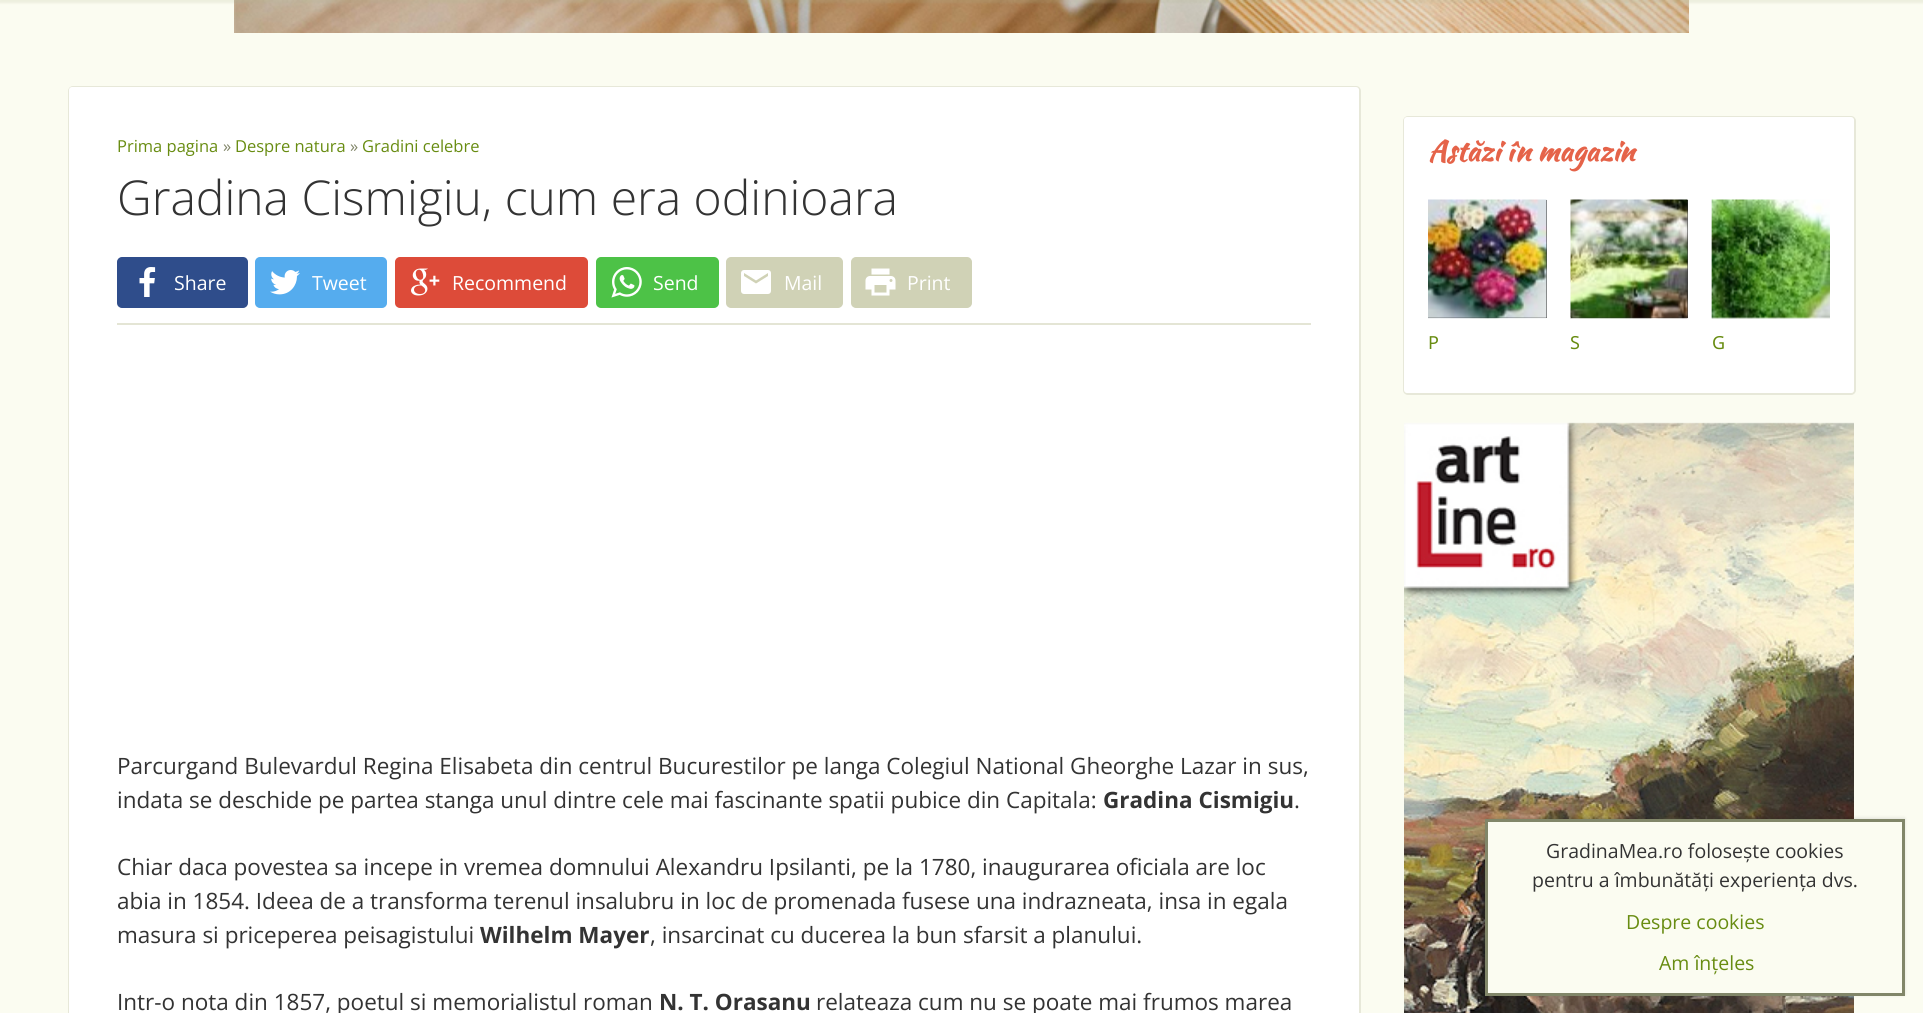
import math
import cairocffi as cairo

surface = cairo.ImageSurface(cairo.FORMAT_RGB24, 1923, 1013)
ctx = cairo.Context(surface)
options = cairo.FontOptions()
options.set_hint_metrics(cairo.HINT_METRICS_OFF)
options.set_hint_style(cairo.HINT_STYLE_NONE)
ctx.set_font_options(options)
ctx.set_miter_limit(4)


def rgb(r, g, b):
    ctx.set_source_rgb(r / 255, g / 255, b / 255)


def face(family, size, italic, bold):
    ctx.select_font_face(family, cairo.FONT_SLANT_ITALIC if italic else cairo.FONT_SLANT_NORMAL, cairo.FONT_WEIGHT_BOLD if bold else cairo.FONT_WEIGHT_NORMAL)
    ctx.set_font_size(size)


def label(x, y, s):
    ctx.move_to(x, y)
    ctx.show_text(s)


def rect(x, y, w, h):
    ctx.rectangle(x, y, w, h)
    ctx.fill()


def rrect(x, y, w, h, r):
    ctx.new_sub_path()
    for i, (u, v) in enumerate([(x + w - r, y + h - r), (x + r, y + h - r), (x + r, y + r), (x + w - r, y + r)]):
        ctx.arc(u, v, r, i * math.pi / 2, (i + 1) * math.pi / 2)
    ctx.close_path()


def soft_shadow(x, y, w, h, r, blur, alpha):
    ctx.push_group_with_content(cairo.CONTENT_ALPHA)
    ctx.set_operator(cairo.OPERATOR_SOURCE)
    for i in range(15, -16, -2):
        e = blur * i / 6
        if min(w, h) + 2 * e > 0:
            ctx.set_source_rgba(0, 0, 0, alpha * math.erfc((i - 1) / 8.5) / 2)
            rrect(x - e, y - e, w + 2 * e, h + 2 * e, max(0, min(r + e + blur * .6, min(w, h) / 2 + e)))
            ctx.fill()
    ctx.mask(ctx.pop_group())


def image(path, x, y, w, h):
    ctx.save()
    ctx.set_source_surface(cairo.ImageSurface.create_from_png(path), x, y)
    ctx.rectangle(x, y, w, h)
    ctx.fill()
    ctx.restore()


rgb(251, 252, 241)
ctx.paint()
image('image0.png', 234, 0, 1455, 33)
rgb(178, 184, 146)
soft_shadow(-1, -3, 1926, 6, 0, 1, 0.2)
rrect(69, 87, 1291, 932, 4)
rgb(231, 232, 217)
ctx.stroke()
rgb(255, 255, 255)
rrect(69, 87, 1290, 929, 3)
ctx.fill()
face('Open Sans', 16.5, 0, 0)
rgb(104, 140, 17)
label(117, 152, 'Prima pagina')
rgb(129, 134, 105)
label(223, 152, '»')
rgb(104, 140, 17)
label(235, 152, 'Despre natura')
rgb(129, 134, 105)
label(350, 152, '»')
rgb(104, 140, 17)
label(362, 152, 'Gradini celebre')
face('Open Sans Light', 48, 0, 0)
rgb(51, 51, 51)
label(117, 215, 'Gradina Cismigiu, cum era odinioara')
rgb(228, 229, 213)
rect(117, 323, 1194, 2)
rgb(47, 77, 139)
rrect(118, 258, 129, 49, 4)
ctx.fill_preserve()
ctx.stroke()
image('image1.png', 139, 267, 17, 30)
face('Open Sans', 19.5, 0, 0)
rgb(255, 255, 255)
label(174, 290, 'Share')
rgb(85, 172, 238)
rrect(256, 258, 130, 49, 4)
ctx.fill_preserve()
ctx.stroke()
image('image2.png', 270, 270, 30, 25)
rgb(255, 255, 255)
label(312, 290, 'Tweet')
rgb(221, 75, 57)
rrect(396, 258, 191, 49, 4)
ctx.fill_preserve()
ctx.stroke()
image('image3.png', 411, 268, 29, 28)
rgb(255, 255, 255)
label(452, 290, 'Recommend')
rgb(77, 194, 71)
rrect(597, 258, 121, 49, 4)
ctx.fill_preserve()
ctx.stroke()
image('image4.png', 611, 267, 31, 31)
rgb(255, 255, 255)
label(653, 290, 'Send')
rgb(208, 210, 182)
rrect(727, 258, 115, 49, 4)
ctx.fill_preserve()
ctx.stroke()
image('image5.png', 741, 270, 30, 24)
rgb(255, 255, 255)
label(784, 290, 'Mail')
rgb(208, 210, 182)
rrect(852, 258, 119, 49, 4)
ctx.fill_preserve()
ctx.stroke()
image('image6.png', 865, 268, 31, 28)
rgb(255, 255, 255)
label(907, 290, 'Print')
face('Open Sans', 22.5, 0, 0)
rgb(51, 51, 51)
label(117, 774, 'Parcurgand Bulevardul Regina Elisabeta din centrul Bucurestilor pe langa Colegiul National Gheorghe Lazar in sus,')
label(117, 808, 'indata se deschide pe partea stanga unul dintre cele mai fascinante spatii pubice din Capitala:')
face('Open Sans', 22.5, 0, 1)
label(1103, 808, 'Gradina Cismigiu')
face('Open Sans', 22.5, 0, 0)
label(1294, 808, '.')
label(117, 875, 'Chiar daca povestea sa incepe in vremea domnului Alexandru Ipsilanti, pe la 1780, inaugurarea oficiala are loc')
label(117, 909, 'abia in 1854. Ideea de a transforma terenul insalubru in loc de promenada fusese una indrazneata, insa in egala')
label(117, 943, 'masura si priceperea peisagistului')
face('Open Sans', 22.5, 0, 1)
label(480, 943, 'Wilhelm Mayer')
face('Open Sans', 22.5, 0, 0)
label(650, 943, ', insarcinat cu ducerea la bun sfarsit a planului.')
label(117, 1010, 'Intr-o nota din 1857, poetul si memorialistul roman')
face('Open Sans', 22.5, 0, 1)
label(659, 1010, 'N. T. Orasanu')
face('Open Sans', 22.5, 0, 0)
label(816, 1010, 'relateaza cum nu se poate mai frumos marea')
rrect(1404, 117, 451, 277, 4)
rgb(231, 232, 217)
ctx.stroke()
rgb(255, 255, 255)
rrect(1404, 117, 450, 276, 3)
ctx.fill()
face('Kaushan Script', 28.5, 0, 1)
rgb(229, 99, 73)
label(1428, 161, 'Astăzi în magazin')
rgb(51, 51, 51)
rect(1428, 200, 119, 118)
image('image7.png', 1428, 199, 119, 120)
face('Noto Sans', 18, 0, 0)
rgb(104, 140, 17)
label(1428, 349, 'P')
rgb(51, 51, 51)
rect(1571, 200, 117, 118)
image('image8.png', 1570, 199, 118, 120)
rgb(104, 140, 17)
label(1570, 349, 'S')
image('image9.png', 1711, 199, 119, 120)
label(1712, 349, 'G')
image('image10.png', 1404, 422, 450, 591)
rgb(0, 0, 0)
soft_shadow(1485, 818, 420, 177, 0, 1.5, 0.1)
rgb(251, 252, 241)
ctx.rectangle(1486.5, 820.5, 417, 174)
ctx.fill_preserve()
rgb(129, 134, 105)
ctx.set_line_width(3)
ctx.stroke()
face('Open Sans', 19.5, 0, 0)
rgb(51, 51, 51)
label(1546, 858, 'GradinaMea.ro folosește cookies')
label(1532, 887, 'pentru a îmbunătăți experiența dvs.')
rgb(104, 140, 17)
label(1626, 929, 'Despre cookies')
label(1659, 970, 'Am înțeles')
surface.write_to_png('render.png')
